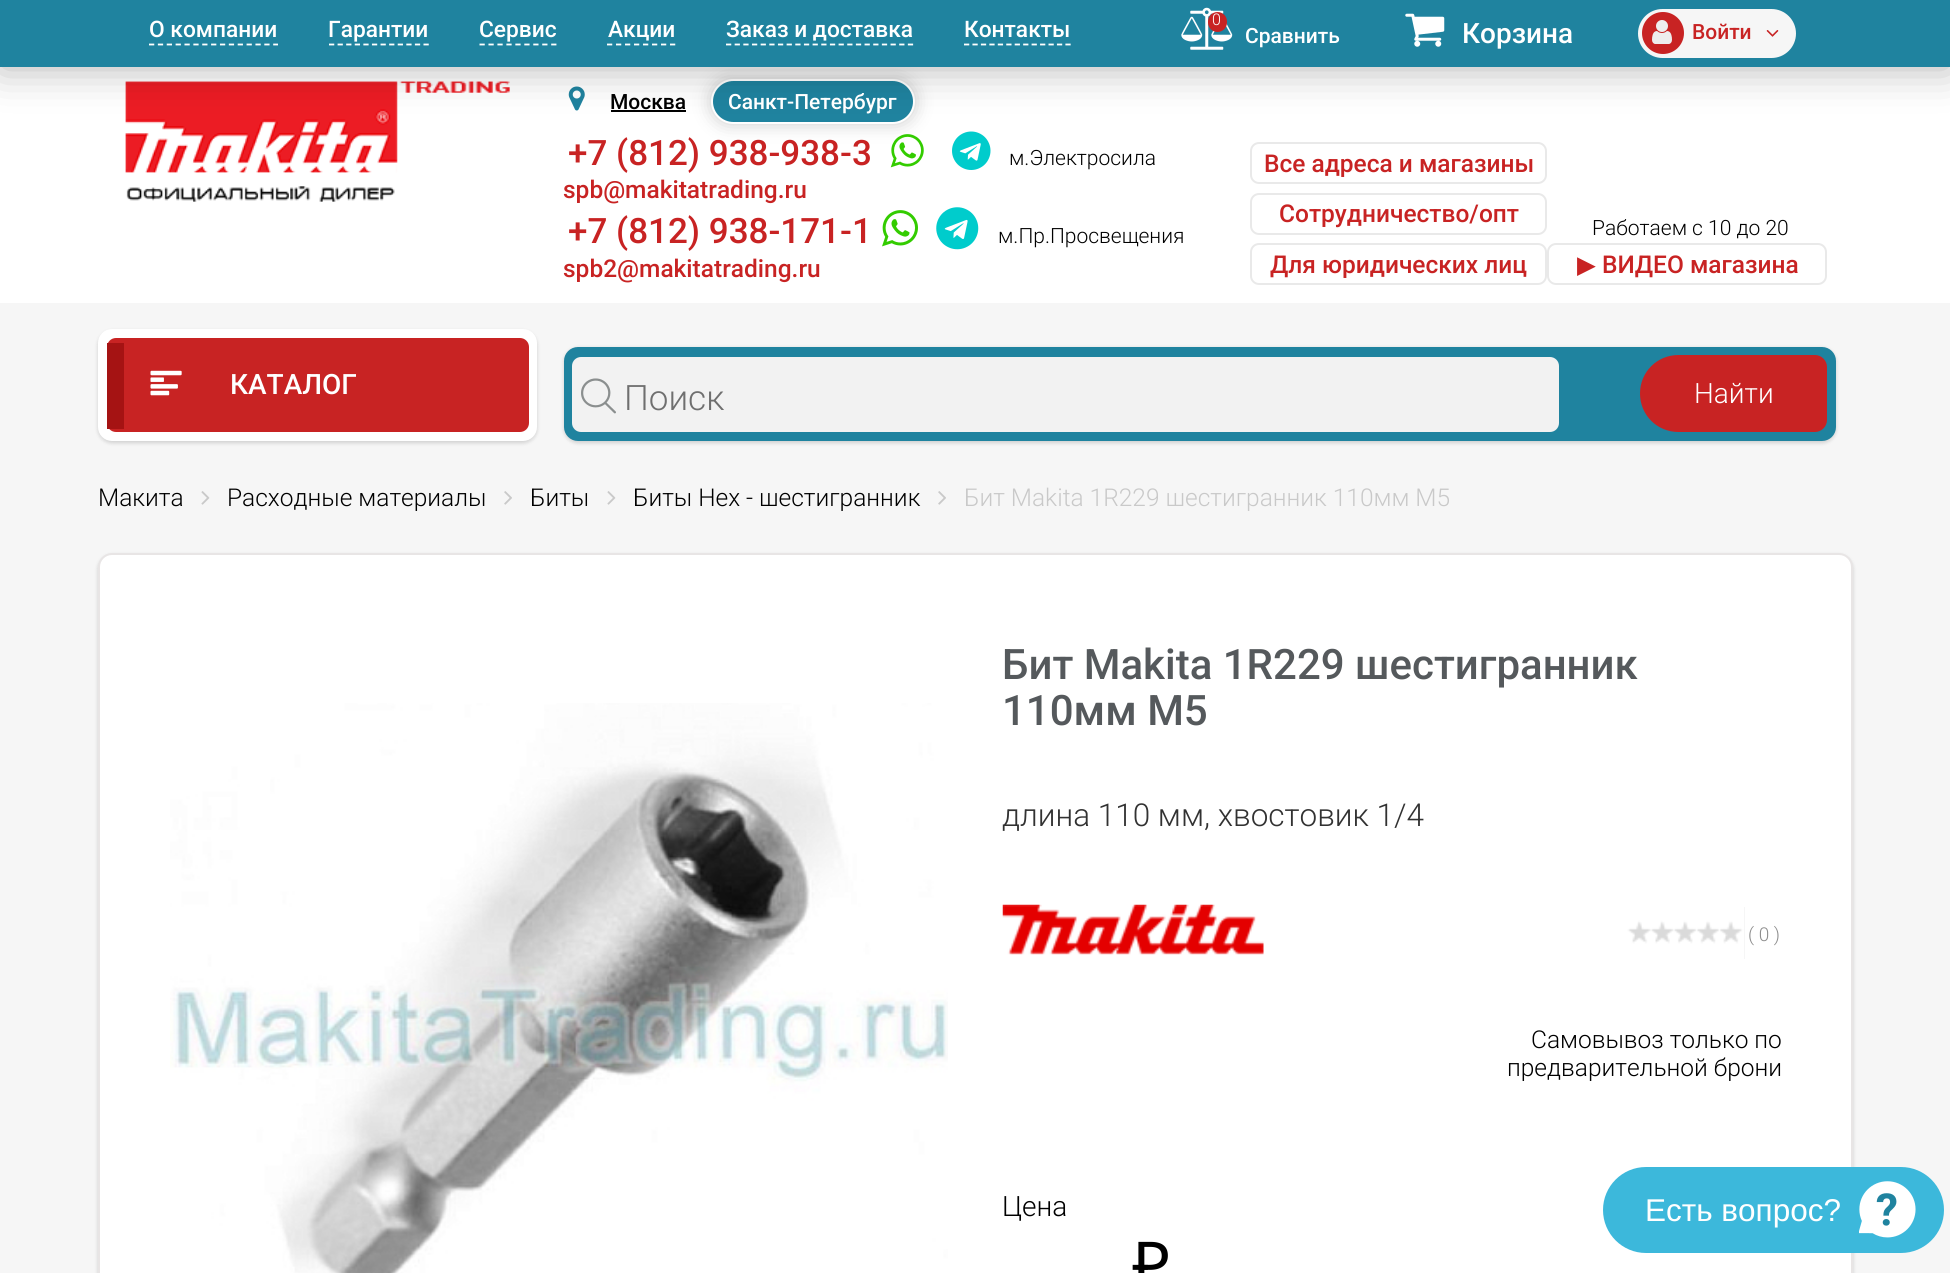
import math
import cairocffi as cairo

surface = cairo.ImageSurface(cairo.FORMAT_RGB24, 1950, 1273)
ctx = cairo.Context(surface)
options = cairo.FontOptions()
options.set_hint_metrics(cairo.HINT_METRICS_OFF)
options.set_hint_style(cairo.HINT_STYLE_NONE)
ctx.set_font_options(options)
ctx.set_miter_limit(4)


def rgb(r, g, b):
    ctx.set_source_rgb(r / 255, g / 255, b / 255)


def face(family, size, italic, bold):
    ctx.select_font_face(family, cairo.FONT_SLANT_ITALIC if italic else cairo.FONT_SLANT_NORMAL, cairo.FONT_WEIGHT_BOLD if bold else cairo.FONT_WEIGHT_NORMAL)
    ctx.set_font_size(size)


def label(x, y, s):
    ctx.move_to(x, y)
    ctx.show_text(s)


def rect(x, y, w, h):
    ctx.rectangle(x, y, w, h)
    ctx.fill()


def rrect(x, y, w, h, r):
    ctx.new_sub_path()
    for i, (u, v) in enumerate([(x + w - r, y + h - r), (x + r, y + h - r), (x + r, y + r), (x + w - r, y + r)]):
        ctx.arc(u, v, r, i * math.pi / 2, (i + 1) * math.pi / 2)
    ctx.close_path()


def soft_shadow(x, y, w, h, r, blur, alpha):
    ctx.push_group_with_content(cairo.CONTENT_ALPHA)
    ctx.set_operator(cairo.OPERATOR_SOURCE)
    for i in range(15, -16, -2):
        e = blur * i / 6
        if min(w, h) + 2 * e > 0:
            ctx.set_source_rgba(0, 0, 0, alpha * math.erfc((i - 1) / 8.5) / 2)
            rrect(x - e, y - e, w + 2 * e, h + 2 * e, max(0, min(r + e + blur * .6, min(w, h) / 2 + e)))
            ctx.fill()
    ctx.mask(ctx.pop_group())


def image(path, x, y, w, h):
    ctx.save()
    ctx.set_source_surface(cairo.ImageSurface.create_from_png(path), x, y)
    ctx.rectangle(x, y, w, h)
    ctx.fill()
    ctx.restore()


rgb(246, 246, 246)
ctx.paint()
rgb(255, 255, 255)
rect(0, 67, 1950, 236)
image('image4.png', 125, 81, 385, 121)
image('image5.png', 568, 86, 17, 25)
rgb(0, 0, 0)
rect(611, 110, 75, 2)
rgb(0, 0, 0)
soft_shadow(711, 79, 204, 45, 22.5, 9, 0.2)
rgb(31, 131, 159)
rrect(712, 80, 202, 43, 21.5)
ctx.fill_preserve()
rgb(255, 255, 255)
ctx.stroke()
image('image7.png', 952, 131, 39, 39)
rgb(0, 0, 0)
soft_shadow(0, 2, 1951, 66, 0, 21, 0.3)
rgb(31, 131, 159)
rect(0, 0, 1950, 67)
ctx.new_path()
ctx.move_to(149, 44.5)
ctx.line_to(278, 44.5)
rgb(255, 255, 255)
ctx.set_line_width(1.8)
ctx.set_dash([5.25, 3.62])
ctx.stroke()
face('Roboto Medium', 22.75, 0, 0)
label(149, 37, 'О компании')
ctx.new_path()
ctx.move_to(329, 44.5)
ctx.line_to(429, 44.5)
ctx.set_dash([5.25, 3.34])
ctx.stroke()
label(328, 37, 'Гарантии')
ctx.new_path()
ctx.move_to(479.5, 44.5)
ctx.line_to(556.5, 44.5)
ctx.set_dash([5.25, 3.71])
ctx.stroke()
label(479, 37, 'Сервис')
ctx.new_path()
ctx.move_to(607, 44.5)
ctx.line_to(675.5, 44.5)
ctx.set_dash([5.25, 3.75])
ctx.stroke()
label(608, 37, 'Акции')
ctx.new_path()
ctx.move_to(726, 44.5)
ctx.line_to(913.5, 44.5)
ctx.set_dash([5.25, 3.41])
ctx.stroke()
label(726, 37, 'Заказ и доставка')
ctx.new_path()
ctx.move_to(964, 44.5)
ctx.line_to(1071, 44.5)
ctx.set_dash([5.25, 3.2])
ctx.stroke()
label(964, 37, 'Контакты')
image('image0.png', 1181, 7, 52, 43)
rgb(200, 35, 35)
rrect(1208, 12, 19, 20, 9.5)
ctx.fill()
face('Roboto Light', 16, 0, 0)
rgb(255, 255, 255)
label(1212, 25, '0')
face('Roboto Medium', 21, 0, 0)
label(1245, 43, 'Сравнить')
image('image1.png', 1405, 13, 40, 34)
face('Roboto Medium', 28, 0, 0)
label(1462, 43, 'Корзина')
rgb(246, 246, 246)
rrect(1640, 11, 154, 45, 22.5)
ctx.fill_preserve()
ctx.set_line_width(4)
ctx.set_dash([])
ctx.stroke()
rgb(200, 35, 35)
ctx.arc(1663, 33, 21, 0, 2 * math.pi)
ctx.fill()
image('image2.png', 1652, 20, 20, 24)
face('Roboto Medium', 21, 0, 0)
label(1692, 39, 'Войти')
image('image3.png', 1766, 30, 13, 7)
rgb(0, 0, 0)
label(610, 109, 'Москва')
rgb(255, 255, 255)
label(728, 109, 'Санкт-Петербург')
face('Roboto Medium', 35, 0, 0)
rgb(200, 35, 35)
label(568, 165, '+7 (812) 938-938-3')
image('image6.png', 890, 134, 34, 34)
face('Roboto Light', 21, 0, 0)
rgb(0, 0, 0)
label(1009, 165, 'м.Электросила')
face('Roboto Medium', 24.5, 0, 0)
rgb(200, 35, 35)
label(563, 198, 'spb@makitatrading.ru')
face('Roboto Medium', 35, 0, 0)
label(568, 243, '+7 (812) 938-171-1')
image('image8.png', 882, 210, 36, 37)
image('image9.png', 936, 207, 43, 43)
face('Roboto Light', 21, 0, 0)
rgb(0, 0, 0)
label(998, 243, 'м.Пр.Просвещения')
face('Roboto Medium', 24.5, 0, 0)
rgb(200, 35, 35)
label(563, 277, 'spb2@makitatrading.ru')
rrect(1251, 143, 295, 40, 8)
rgb(233, 233, 233)
ctx.set_line_width(2)
ctx.stroke()
rgb(200, 35, 35)
label(1264, 172, 'Все адреса и магазины')
rrect(1251, 194, 295, 40, 8)
rgb(233, 233, 233)
ctx.stroke()
rgb(200, 35, 35)
label(1279, 222, 'Сотрудничество/опт')
rrect(1251, 244, 295, 40, 8)
rgb(233, 233, 233)
ctx.stroke()
rgb(200, 35, 35)
label(1270, 273, 'Для юридических лиц')
face('Roboto Light', 21, 0, 0)
rgb(0, 0, 0)
label(1592, 235, 'Работаем с 10 до 20')
rrect(1548, 244, 278, 40, 8)
rgb(233, 233, 233)
ctx.stroke()
face('DejaVu Sans', 24.5, 0, 0)
rgb(200, 35, 35)
label(1577, 273, '▶')
face('Roboto Medium', 24.5, 0, 0)
label(1602, 273, 'ВИДЕО магазина')
rgb(0, 0, 0)
soft_shadow(98, 331, 439, 112, 14, 2, 0.16)
rgb(255, 255, 255)
rrect(98, 329, 439, 112, 14)
ctx.fill()
rgb(200, 35, 35)
rrect(107, 338, 422, 94, 9)
ctx.fill()
rgb(165, 19, 19)
rect(107, 343, 17, 86)
image('image10.png', 150, 370, 32, 26)
face('Roboto Medium', 28, 0, 0)
rgb(255, 255, 255)
label(230, 394, 'КАТАЛОГ')
rgb(0, 0, 0)
soft_shadow(564, 348, 1272, 95, 14, 2, 0.16)
rgb(31, 131, 159)
rrect(564, 347, 1272, 94, 14)
ctx.fill()
rgb(242, 242, 242)
rrect(572, 357, 987, 75, 9)
ctx.fill()
image('image11.png', 581, 378, 35, 36)
face('Roboto Light', 35, 0, 0)
rgb(111, 111, 111)
label(624, 410, 'Поиск')
rgb(200, 35, 35)
ctx.new_path()
ctx.move_to(1678.5, 355)
ctx.line_to(1815, 355)
ctx.curve_to(1821.5, 355, 1827, 360.5, 1827, 367)
ctx.line_to(1827, 420)
ctx.curve_to(1827, 426.5, 1821.5, 432, 1815, 432)
ctx.line_to(1678.5, 432)
ctx.curve_to(1657, 432, 1640, 415, 1640, 393.5)
ctx.curve_to(1640, 372, 1657, 355, 1678.5, 355)
ctx.close_path()
ctx.fill()
face('Roboto Light', 28, 0, 0)
rgb(255, 255, 255)
label(1694, 403, 'Найти')
face('Roboto Light', 24.5, 0, 0)
rgb(0, 0, 0)
label(98, 506, 'Макита')
image('image12.png', 201, 491, 9, 14)
label(227, 506, 'Расходные материалы')
image('image13.png', 504, 491, 8, 14)
label(530, 506, 'Биты')
image('image12.png', 607, 491, 9, 14)
label(633, 506, 'Биты Hex - шестигранник')
image('image13.png', 938, 491, 8, 14)
rgb(201, 201, 201)
label(964, 506, 'Бит Makita 1R229 шестигранник 110мм M5')
rgb(0, 0, 0)
soft_shadow(98, 555, 1755, 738, 14, 2, 0.16)
rgb(255, 255, 255)
rrect(99, 554, 1753, 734, 13)
ctx.fill_preserve()
rgb(232, 229, 229)
ctx.stroke()
image('image14.png', 170, 703, 778, 570)
face('Roboto Medium', 42, 0, 0)
rgb(85, 89, 92)
label(1002, 679, 'Бит Makita 1R229 шестигранник')
label(1002, 725, '110мм M5')
face('Roboto Light', 31.5, 0, 0)
rgb(50, 50, 50)
label(1002, 826, 'длина 110 мм, хвостовик 1/4')
image('image15.png', 1002, 904, 262, 51)
rgb(218, 218, 218)
rect(1627, 907, 118, 52)
image('image16.png', 1626, 907, 119, 52)
face('Roboto Light', 19, 0, 0)
rgb(141, 141, 141)
label(1748, 941, '( 0 )')
face('Roboto Light', 24.5, 0, 0)
rgb(0, 0, 0)
label(1531, 1048, 'Самовывоз только по')
label(1507, 1076, 'предварительной брони')
face('Roboto Light', 28, 0, 0)
label(1002, 1216, 'Цена')
face('Noto Sans', 66, 0, 0)
label(1132, 1289, '₽')
rgb(60, 184, 219)
rrect(1603, 1167, 341, 86, 43)
ctx.fill()
face('Liberation Sans', 31.5, 0, 0)
rgb(255, 255, 255)
label(1645, 1221, 'Есть вопрос?')
image('image17.png', 1859, 1181, 57, 57)
surface.write_to_png('render.png')
